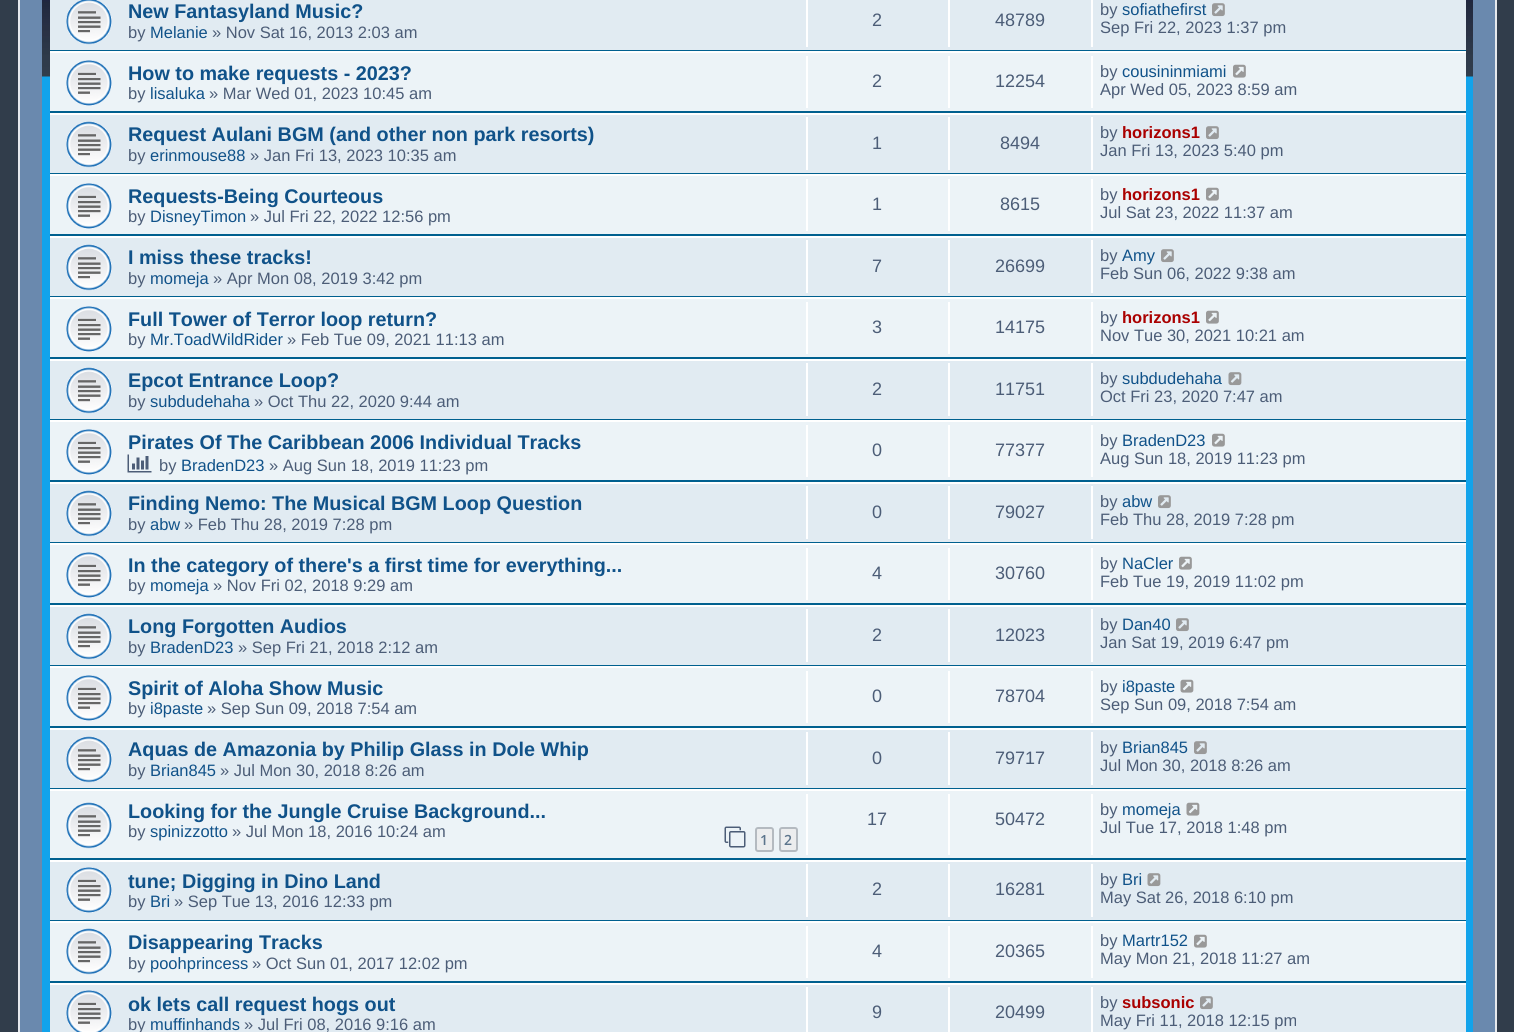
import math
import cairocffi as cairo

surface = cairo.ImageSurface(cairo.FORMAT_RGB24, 1514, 1032)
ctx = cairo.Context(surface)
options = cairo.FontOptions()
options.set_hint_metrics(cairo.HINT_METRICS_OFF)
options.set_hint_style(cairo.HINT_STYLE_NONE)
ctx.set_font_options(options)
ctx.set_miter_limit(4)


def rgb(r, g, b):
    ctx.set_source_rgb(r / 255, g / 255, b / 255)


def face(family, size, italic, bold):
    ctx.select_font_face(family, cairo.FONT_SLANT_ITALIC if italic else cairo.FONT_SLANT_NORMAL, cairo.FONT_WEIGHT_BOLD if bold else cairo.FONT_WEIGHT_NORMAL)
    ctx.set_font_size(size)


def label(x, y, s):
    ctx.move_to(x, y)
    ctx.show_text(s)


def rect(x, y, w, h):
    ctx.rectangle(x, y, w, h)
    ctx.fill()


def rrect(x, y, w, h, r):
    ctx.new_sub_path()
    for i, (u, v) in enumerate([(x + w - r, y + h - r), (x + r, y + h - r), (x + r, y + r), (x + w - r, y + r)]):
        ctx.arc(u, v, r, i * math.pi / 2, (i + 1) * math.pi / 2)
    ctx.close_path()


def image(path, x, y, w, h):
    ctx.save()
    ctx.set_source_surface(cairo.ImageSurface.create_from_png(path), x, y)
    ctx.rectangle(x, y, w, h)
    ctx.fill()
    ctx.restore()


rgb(49, 61, 75)
ctx.paint()
rgb(106, 137, 174)
ctx.rectangle(19, -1, 1477, 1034)
ctx.fill_preserve()
rgb(230, 233, 237)
ctx.stroke()
rgb(18, 163, 235)
rect(42, 76, 1431, 956)
image('image0.png', 42, 0, 1431, 77)
rgb(225, 235, 242)
rect(50, 0, 1416, 50)
rgb(0, 96, 143)
rect(50, 50, 1416, 1)
image('image1.png', 66, 0, 46, 45)
face('Liberation Sans', 19.8, 0, 1)
rgb(16, 82, 137)
label(128, 18, 'New Fantasyland Music?')
face('Liberation Sans', 16.5, 0, 0)
rgb(76, 93, 119)
label(128, 38, 'by')
rgb(16, 82, 137)
label(150, 38, 'Melanie')
rgb(76, 93, 119)
label(212, 38, '» Nov Sat 16, 2013 2:03 am')
rgb(255, 255, 255)
rect(806, 0, 2, 47)
face('Liberation Sans', 18, 0, 0)
rgb(76, 93, 119)
label(872, 26, '2')
rgb(255, 255, 255)
rect(948, 0, 2, 47)
rgb(76, 93, 119)
label(995, 26, '48789')
rgb(255, 255, 255)
rect(1091, 0, 2, 47)
face('Liberation Sans', 16.5, 0, 0)
rgb(76, 93, 119)
label(1100, 15, 'by')
rgb(16, 82, 137)
label(1122, 15, 'sofiathefirst')
image('image2.png', 1212, 3, 13, 14)
rgb(76, 93, 119)
label(1100, 33, 'Sep Fri 22, 2023 1:37 pm')
rgb(236, 243, 247)
rect(50, 53, 1416, 58)
rgb(255, 255, 255)
rect(50, 51, 1416, 2)
rgb(0, 96, 143)
rect(50, 111, 1416, 2)
image('image3.png', 66, 60, 46, 46)
face('Liberation Sans', 19.8, 0, 1)
rgb(16, 82, 137)
label(128, 80, 'How to make requests - 2023?')
face('Liberation Sans', 16.5, 0, 0)
rgb(76, 93, 119)
label(128, 99, 'by')
rgb(16, 82, 137)
label(150, 99, 'lisaluka')
rgb(76, 93, 119)
label(209, 99, '» Mar Wed 01, 2023 10:45 am')
rgb(255, 255, 255)
rect(806, 56, 2, 52)
face('Liberation Sans', 18, 0, 0)
rgb(76, 93, 119)
label(872, 87, '2')
rgb(255, 255, 255)
rect(948, 56, 2, 52)
rgb(76, 93, 119)
label(995, 87, '12254')
rgb(255, 255, 255)
rect(1091, 56, 2, 52)
face('Liberation Sans', 16.5, 0, 0)
rgb(76, 93, 119)
label(1100, 77, 'by')
rgb(16, 82, 137)
label(1122, 77, 'cousininmiami')
image('image4.png', 1233, 64, 13, 14)
rgb(76, 93, 119)
label(1100, 95, 'Apr Wed 05, 2023 8:59 am')
rgb(225, 235, 242)
rect(50, 115, 1416, 58)
rgb(255, 255, 255)
rect(50, 113, 1416, 2)
rgb(0, 96, 143)
rect(50, 173, 1416, 1)
image('image5.png', 66, 121, 46, 47)
face('Liberation Sans', 19.8, 0, 1)
rgb(16, 82, 137)
label(128, 141, 'Request Aulani BGM (and other non park resorts)')
face('Liberation Sans', 16.5, 0, 0)
rgb(76, 93, 119)
label(128, 161, 'by')
rgb(16, 82, 137)
label(150, 161, 'erinmouse88')
rgb(76, 93, 119)
label(250, 161, '» Jan Fri 13, 2023 10:35 am')
rgb(255, 255, 255)
rect(806, 117, 2, 53)
face('Liberation Sans', 18, 0, 0)
rgb(76, 93, 119)
label(872, 149, '1')
rgb(255, 255, 255)
rect(948, 117, 2, 53)
rgb(76, 93, 119)
label(1000, 149, '8494')
rgb(255, 255, 255)
rect(1091, 117, 2, 53)
face('Liberation Sans', 16.5, 0, 0)
rgb(76, 93, 119)
label(1100, 138, 'by')
face('Liberation Sans', 16.5, 0, 1)
rgb(170, 0, 0)
label(1122, 138, 'horizons1')
image('image2.png', 1206, 126, 13, 14)
face('Liberation Sans', 16.5, 0, 0)
rgb(76, 93, 119)
label(1100, 156, 'Jan Fri 13, 2023 5:40 pm')
rgb(236, 243, 247)
rect(50, 176, 1416, 58)
rgb(255, 255, 255)
rect(50, 174, 1416, 2)
rgb(0, 96, 143)
rect(50, 234, 1416, 2)
image('image3.png', 66, 183, 46, 46)
face('Liberation Sans', 19.8, 0, 1)
rgb(16, 82, 137)
label(128, 203, 'Requests-Being Courteous')
face('Liberation Sans', 16.5, 0, 0)
rgb(76, 93, 119)
label(128, 222, 'by')
rgb(16, 82, 137)
label(150, 222, 'DisneyTimon')
rgb(76, 93, 119)
label(250, 222, '» Jul Fri 22, 2022 12:56 pm')
rgb(255, 255, 255)
rect(806, 179, 2, 52)
face('Liberation Sans', 18, 0, 0)
rgb(76, 93, 119)
label(872, 210, '1')
rgb(255, 255, 255)
rect(948, 179, 2, 52)
rgb(76, 93, 119)
label(1000, 210, '8615')
rgb(255, 255, 255)
rect(1091, 179, 2, 52)
face('Liberation Sans', 16.5, 0, 0)
rgb(76, 93, 119)
label(1100, 200, 'by')
face('Liberation Sans', 16.5, 0, 1)
rgb(170, 0, 0)
label(1122, 200, 'horizons1')
image('image4.png', 1206, 187, 13, 14)
face('Liberation Sans', 16.5, 0, 0)
rgb(76, 93, 119)
label(1100, 218, 'Jul Sat 23, 2022 11:37 am')
rgb(225, 235, 242)
rect(50, 238, 1416, 58)
rgb(255, 255, 255)
rect(50, 236, 1416, 2)
rgb(0, 96, 143)
rect(50, 296, 1416, 1)
image('image5.png', 66, 244, 46, 47)
face('Liberation Sans', 19.8, 0, 1)
rgb(16, 82, 137)
label(128, 264, 'I miss these tracks!')
face('Liberation Sans', 16.5, 0, 0)
rgb(76, 93, 119)
label(128, 284, 'by')
rgb(16, 82, 137)
label(150, 284, 'momeja')
rgb(76, 93, 119)
label(213, 284, '» Apr Mon 08, 2019 3:42 pm')
rgb(255, 255, 255)
rect(806, 240, 2, 53)
face('Liberation Sans', 18, 0, 0)
rgb(76, 93, 119)
label(872, 272, '7')
rgb(255, 255, 255)
rect(948, 240, 2, 53)
rgb(76, 93, 119)
label(995, 272, '26699')
rgb(255, 255, 255)
rect(1091, 240, 2, 53)
face('Liberation Sans', 16.5, 0, 0)
rgb(76, 93, 119)
label(1100, 261, 'by')
rgb(16, 82, 137)
label(1122, 261, 'Amy')
image('image2.png', 1161, 249, 13, 14)
rgb(76, 93, 119)
label(1100, 279, 'Feb Sun 06, 2022 9:38 am')
rgb(236, 243, 247)
rect(50, 299, 1416, 58)
rgb(255, 255, 255)
rect(50, 297, 1416, 2)
rgb(0, 96, 143)
rect(50, 357, 1416, 2)
image('image3.png', 66, 306, 46, 46)
face('Liberation Sans', 19.8, 0, 1)
rgb(16, 82, 137)
label(128, 326, 'Full Tower of Terror loop return?')
face('Liberation Sans', 16.5, 0, 0)
rgb(76, 93, 119)
label(128, 345, 'by')
rgb(16, 82, 137)
label(150, 345, 'Mr.ToadWildRider')
rgb(76, 93, 119)
label(287, 345, '» Feb Tue 09, 2021 11:13 am')
rgb(255, 255, 255)
rect(806, 302, 2, 52)
face('Liberation Sans', 18, 0, 0)
rgb(76, 93, 119)
label(872, 333, '3')
rgb(255, 255, 255)
rect(948, 302, 2, 52)
rgb(76, 93, 119)
label(995, 333, '14175')
rgb(255, 255, 255)
rect(1091, 302, 2, 52)
face('Liberation Sans', 16.5, 0, 0)
rgb(76, 93, 119)
label(1100, 323, 'by')
face('Liberation Sans', 16.5, 0, 1)
rgb(170, 0, 0)
label(1122, 323, 'horizons1')
image('image4.png', 1206, 310, 13, 14)
face('Liberation Sans', 16.5, 0, 0)
rgb(76, 93, 119)
label(1100, 341, 'Nov Tue 30, 2021 10:21 am')
rgb(225, 235, 242)
rect(50, 361, 1416, 58)
rgb(255, 255, 255)
rect(50, 359, 1416, 2)
rgb(0, 96, 143)
rect(50, 419, 1416, 1)
image('image5.png', 66, 367, 46, 47)
face('Liberation Sans', 19.8, 0, 1)
rgb(16, 82, 137)
label(128, 387, 'Epcot Entrance Loop?')
face('Liberation Sans', 16.5, 0, 0)
rgb(76, 93, 119)
label(128, 407, 'by')
rgb(16, 82, 137)
label(150, 407, 'subdudehaha')
rgb(76, 93, 119)
label(254, 407, '» Oct Thu 22, 2020 9:44 am')
rgb(255, 255, 255)
rect(806, 363, 2, 53)
face('Liberation Sans', 18, 0, 0)
rgb(76, 93, 119)
label(872, 395, '2')
rgb(255, 255, 255)
rect(948, 363, 2, 53)
rgb(76, 93, 119)
label(995, 395, '11751')
rgb(255, 255, 255)
rect(1091, 363, 2, 53)
face('Liberation Sans', 16.5, 0, 0)
rgb(76, 93, 119)
label(1100, 384, 'by')
rgb(16, 82, 137)
label(1122, 384, 'subdudehaha')
image('image6.png', 1228, 372, 14, 14)
rgb(76, 93, 119)
label(1100, 402, 'Oct Fri 23, 2020 7:47 am')
rgb(236, 243, 247)
rect(50, 422, 1416, 58)
rgb(255, 255, 255)
rect(50, 420, 1416, 2)
rgb(0, 96, 143)
rect(50, 480, 1416, 2)
image('image3.png', 66, 429, 46, 46)
face('Liberation Sans', 19.8, 0, 1)
rgb(16, 82, 137)
label(128, 449, 'Pirates Of The Caribbean 2006 Individual Tracks')
image('image7.png', 127, 454, 25, 19)
face('Liberation Sans', 16.5, 0, 0)
rgb(76, 93, 119)
label(159, 471, 'by')
rgb(16, 82, 137)
label(181, 471, 'BradenD23')
rgb(76, 93, 119)
label(269, 471, '» Aug Sun 18, 2019 11:23 pm')
rgb(255, 255, 255)
rect(806, 425, 2, 52)
face('Liberation Sans', 18, 0, 0)
rgb(76, 93, 119)
label(872, 456, '0')
rgb(255, 255, 255)
rect(948, 425, 2, 52)
rgb(76, 93, 119)
label(995, 456, '77377')
rgb(255, 255, 255)
rect(1091, 425, 2, 52)
face('Liberation Sans', 16.5, 0, 0)
rgb(76, 93, 119)
label(1100, 446, 'by')
rgb(16, 82, 137)
label(1122, 446, 'BradenD23')
image('image4.png', 1212, 433, 13, 14)
rgb(76, 93, 119)
label(1100, 464, 'Aug Sun 18, 2019 11:23 pm')
rgb(225, 235, 242)
rect(50, 484, 1416, 58)
rgb(255, 255, 255)
rect(50, 482, 1416, 2)
rgb(0, 96, 143)
rect(50, 542, 1416, 1)
image('image5.png', 66, 490, 46, 47)
face('Liberation Sans', 19.8, 0, 1)
rgb(16, 82, 137)
label(128, 510, 'Finding Nemo: The Musical BGM Loop Question')
face('Liberation Sans', 16.5, 0, 0)
rgb(76, 93, 119)
label(128, 530, 'by')
rgb(16, 82, 137)
label(150, 530, 'abw')
rgb(76, 93, 119)
label(184, 530, '» Feb Thu 28, 2019 7:28 pm')
rgb(255, 255, 255)
rect(806, 486, 2, 53)
face('Liberation Sans', 18, 0, 0)
rgb(76, 93, 119)
label(872, 518, '0')
rgb(255, 255, 255)
rect(948, 486, 2, 53)
rgb(76, 93, 119)
label(995, 518, '79027')
rgb(255, 255, 255)
rect(1091, 486, 2, 53)
face('Liberation Sans', 16.5, 0, 0)
rgb(76, 93, 119)
label(1100, 507, 'by')
rgb(16, 82, 137)
label(1122, 507, 'abw')
image('image2.png', 1158, 495, 13, 14)
rgb(76, 93, 119)
label(1100, 525, 'Feb Thu 28, 2019 7:28 pm')
rgb(236, 243, 247)
rect(50, 545, 1416, 58)
rgb(255, 255, 255)
rect(50, 543, 1416, 2)
rgb(0, 96, 143)
rect(50, 603, 1416, 2)
image('image3.png', 66, 552, 46, 46)
face('Liberation Sans', 19.8, 0, 1)
rgb(16, 82, 137)
label(128, 572, 'In the category of there\'s a first time for everything...')
face('Liberation Sans', 16.5, 0, 0)
rgb(76, 93, 119)
label(128, 591, 'by')
rgb(16, 82, 137)
label(150, 591, 'momeja')
rgb(76, 93, 119)
label(213, 591, '» Nov Fri 02, 2018 9:29 am')
rgb(255, 255, 255)
rect(806, 548, 2, 52)
face('Liberation Sans', 18, 0, 0)
rgb(76, 93, 119)
label(872, 579, '4')
rgb(255, 255, 255)
rect(948, 548, 2, 52)
rgb(76, 93, 119)
label(995, 579, '30760')
rgb(255, 255, 255)
rect(1091, 548, 2, 52)
face('Liberation Sans', 16.5, 0, 0)
rgb(76, 93, 119)
label(1100, 569, 'by')
rgb(16, 82, 137)
label(1122, 569, 'NaCler')
image('image4.png', 1179, 556, 13, 14)
rgb(76, 93, 119)
label(1100, 587, 'Feb Tue 19, 2019 11:02 pm')
rgb(225, 235, 242)
rect(50, 607, 1416, 58)
rgb(255, 255, 255)
rect(50, 605, 1416, 2)
rgb(0, 96, 143)
rect(50, 665, 1416, 1)
image('image5.png', 66, 613, 46, 47)
face('Liberation Sans', 19.8, 0, 1)
rgb(16, 82, 137)
label(128, 633, 'Long Forgotten Audios')
face('Liberation Sans', 16.5, 0, 0)
rgb(76, 93, 119)
label(128, 653, 'by')
rgb(16, 82, 137)
label(150, 653, 'BradenD23')
rgb(76, 93, 119)
label(238, 653, '» Sep Fri 21, 2018 2:12 am')
rgb(255, 255, 255)
rect(806, 609, 2, 53)
face('Liberation Sans', 18, 0, 0)
rgb(76, 93, 119)
label(872, 641, '2')
rgb(255, 255, 255)
rect(948, 609, 2, 53)
rgb(76, 93, 119)
label(995, 641, '12023')
rgb(255, 255, 255)
rect(1091, 609, 2, 53)
face('Liberation Sans', 16.5, 0, 0)
rgb(76, 93, 119)
label(1100, 630, 'by')
rgb(16, 82, 137)
label(1122, 630, 'Dan40')
image('image2.png', 1176, 618, 13, 14)
rgb(76, 93, 119)
label(1100, 648, 'Jan Sat 19, 2019 6:47 pm')
rgb(236, 243, 247)
rect(50, 668, 1416, 58)
rgb(255, 255, 255)
rect(50, 666, 1416, 2)
rgb(0, 96, 143)
rect(50, 726, 1416, 2)
image('image3.png', 66, 675, 46, 46)
face('Liberation Sans', 19.8, 0, 1)
rgb(16, 82, 137)
label(128, 695, 'Spirit of Aloha Show Music')
face('Liberation Sans', 16.5, 0, 0)
rgb(76, 93, 119)
label(128, 714, 'by')
rgb(16, 82, 137)
label(150, 714, 'i8paste')
rgb(76, 93, 119)
label(207, 714, '» Sep Sun 09, 2018 7:54 am')
rgb(255, 255, 255)
rect(806, 671, 2, 52)
face('Liberation Sans', 18, 0, 0)
rgb(76, 93, 119)
label(872, 702, '0')
rgb(255, 255, 255)
rect(948, 671, 2, 52)
rgb(76, 93, 119)
label(995, 702, '78704')
rgb(255, 255, 255)
rect(1091, 671, 2, 52)
face('Liberation Sans', 16.5, 0, 0)
rgb(76, 93, 119)
label(1100, 692, 'by')
rgb(16, 82, 137)
label(1122, 692, 'i8paste')
image('image8.png', 1180, 679, 14, 14)
rgb(76, 93, 119)
label(1100, 710, 'Sep Sun 09, 2018 7:54 am')
rgb(225, 235, 242)
rect(50, 730, 1416, 58)
rgb(255, 255, 255)
rect(50, 728, 1416, 2)
rgb(0, 96, 143)
rect(50, 788, 1416, 1)
image('image5.png', 66, 736, 46, 47)
face('Liberation Sans', 19.8, 0, 1)
rgb(16, 82, 137)
label(128, 756, 'Aquas de Amazonia by Philip Glass in Dole Whip')
face('Liberation Sans', 16.5, 0, 0)
rgb(76, 93, 119)
label(128, 776, 'by')
rgb(16, 82, 137)
label(150, 776, 'Brian845')
rgb(76, 93, 119)
label(220, 776, '» Jul Mon 30, 2018 8:26 am')
rgb(255, 255, 255)
rect(806, 732, 2, 53)
face('Liberation Sans', 18, 0, 0)
rgb(76, 93, 119)
label(872, 764, '0')
rgb(255, 255, 255)
rect(948, 732, 2, 53)
rgb(76, 93, 119)
label(995, 764, '79717')
rgb(255, 255, 255)
rect(1091, 732, 2, 53)
face('Liberation Sans', 16.5, 0, 0)
rgb(76, 93, 119)
label(1100, 753, 'by')
rgb(16, 82, 137)
label(1122, 753, 'Brian845')
image('image2.png', 1194, 741, 13, 14)
rgb(76, 93, 119)
label(1100, 771, 'Jul Mon 30, 2018 8:26 am')
rgb(236, 243, 247)
rect(50, 791, 1416, 67)
rgb(255, 255, 255)
rect(50, 789, 1416, 2)
rgb(0, 96, 143)
rect(50, 858, 1416, 2)
image('image9.png', 66, 802, 46, 47)
face('Liberation Sans', 19.8, 0, 1)
rgb(16, 82, 137)
label(128, 818, 'Looking for the Jungle Cruise Background...')
face('Liberation Sans', 16.5, 0, 0)
rgb(76, 93, 119)
label(128, 837, 'by')
rgb(16, 82, 137)
label(150, 837, 'spinizzotto')
rgb(76, 93, 119)
label(232, 837, '» Jul Mon 18, 2016 10:24 am')
image('image10.png', 724, 826, 22, 22)
rgb(236, 237, 238)
rrect(756, 828, 17, 23, 2)
ctx.fill_preserve()
rgb(180, 186, 192)
ctx.stroke()
face('Open Sans SemiBold', 14, 0, 0)
rgb(92, 117, 140)
label(760, 845, '1')
rgb(236, 237, 238)
rrect(780, 828, 17, 23, 2)
ctx.fill_preserve()
rgb(180, 186, 192)
ctx.stroke()
rgb(92, 117, 140)
label(784, 845, '2')
rgb(255, 255, 255)
rect(806, 794, 2, 61)
face('Liberation Sans', 18, 0, 0)
rgb(76, 93, 119)
label(867, 825, '17')
rgb(255, 255, 255)
rect(948, 794, 2, 61)
rgb(76, 93, 119)
label(995, 825, '50472')
rgb(255, 255, 255)
rect(1091, 794, 2, 61)
face('Liberation Sans', 16.5, 0, 0)
rgb(76, 93, 119)
label(1100, 815, 'by')
rgb(16, 82, 137)
label(1122, 815, 'momeja')
image('image8.png', 1186, 802, 14, 14)
rgb(76, 93, 119)
label(1100, 833, 'Jul Tue 17, 2018 1:48 pm')
rgb(225, 235, 242)
rect(50, 862, 1416, 58)
rgb(255, 255, 255)
rect(50, 860, 1416, 2)
rgb(0, 96, 143)
rect(50, 920, 1416, 1)
image('image11.png', 66, 867, 46, 46)
face('Liberation Sans', 19.8, 0, 1)
rgb(16, 82, 137)
label(128, 888, 'tune; Digging in Dino Land')
face('Liberation Sans', 16.5, 0, 0)
rgb(76, 93, 119)
label(128, 907, 'by')
rgb(16, 82, 137)
label(150, 907, 'Bri')
rgb(76, 93, 119)
label(174, 907, '» Sep Tue 13, 2016 12:33 pm')
rgb(255, 255, 255)
rect(806, 864, 2, 53)
face('Liberation Sans', 18, 0, 0)
rgb(76, 93, 119)
label(872, 895, '2')
rgb(255, 255, 255)
rect(948, 864, 2, 53)
rgb(76, 93, 119)
label(995, 895, '16281')
rgb(255, 255, 255)
rect(1091, 864, 2, 53)
face('Liberation Sans', 16.5, 0, 0)
rgb(76, 93, 119)
label(1100, 885, 'by')
rgb(16, 82, 137)
label(1122, 885, 'Bri')
image('image6.png', 1147, 873, 14, 14)
rgb(76, 93, 119)
label(1100, 903, 'May Sat 26, 2018 6:10 pm')
rgb(236, 243, 247)
rect(50, 923, 1416, 58)
rgb(255, 255, 255)
rect(50, 921, 1416, 2)
rgb(0, 96, 143)
rect(50, 981, 1416, 2)
image('image9.png', 66, 928, 46, 47)
face('Liberation Sans', 19.8, 0, 1)
rgb(16, 82, 137)
label(128, 949, 'Disappearing Tracks')
face('Liberation Sans', 16.5, 0, 0)
rgb(76, 93, 119)
label(128, 969, 'by')
rgb(16, 82, 137)
label(150, 969, 'poohprincess')
rgb(76, 93, 119)
label(252, 969, '» Oct Sun 01, 2017 12:02 pm')
rgb(255, 255, 255)
rect(806, 926, 2, 52)
face('Liberation Sans', 18, 0, 0)
rgb(76, 93, 119)
label(872, 957, '4')
rgb(255, 255, 255)
rect(948, 926, 2, 52)
rgb(76, 93, 119)
label(995, 957, '20365')
rgb(255, 255, 255)
rect(1091, 926, 2, 52)
face('Liberation Sans', 16.5, 0, 0)
rgb(76, 93, 119)
label(1100, 946, 'by')
rgb(16, 82, 137)
label(1122, 946, 'Martr152')
image('image4.png', 1194, 934, 13, 14)
rgb(76, 93, 119)
label(1100, 964, 'May Mon 21, 2018 11:27 am')
rgb(225, 235, 242)
rect(50, 985, 1416, 47)
rgb(255, 255, 255)
rect(50, 983, 1416, 2)
image('image12.png', 66, 990, 46, 42)
face('Liberation Sans', 19.8, 0, 1)
rgb(16, 82, 137)
label(128, 1011, 'ok lets call request hogs out')
face('Liberation Sans', 16.5, 0, 0)
rgb(76, 93, 119)
label(128, 1030, 'by')
rgb(16, 82, 137)
label(150, 1030, 'muffinhands')
rgb(76, 93, 119)
label(244, 1030, '» Jul Fri 08, 2016 9:16 am')
rgb(255, 255, 255)
rect(806, 987, 2, 45)
face('Liberation Sans', 18, 0, 0)
rgb(76, 93, 119)
label(872, 1018, '9')
rgb(255, 255, 255)
rect(948, 987, 2, 45)
rgb(76, 93, 119)
label(995, 1018, '20499')
rgb(255, 255, 255)
rect(1091, 987, 2, 45)
face('Liberation Sans', 16.5, 0, 0)
rgb(76, 93, 119)
label(1100, 1008, 'by')
face('Liberation Sans', 16.5, 0, 1)
rgb(170, 0, 0)
label(1122, 1008, 'subsonic')
image('image2.png', 1200, 996, 13, 14)
face('Liberation Sans', 16.5, 0, 0)
rgb(76, 93, 119)
label(1100, 1026, 'May Fri 11, 2018 12:15 pm')
surface.write_to_png('render.png')
